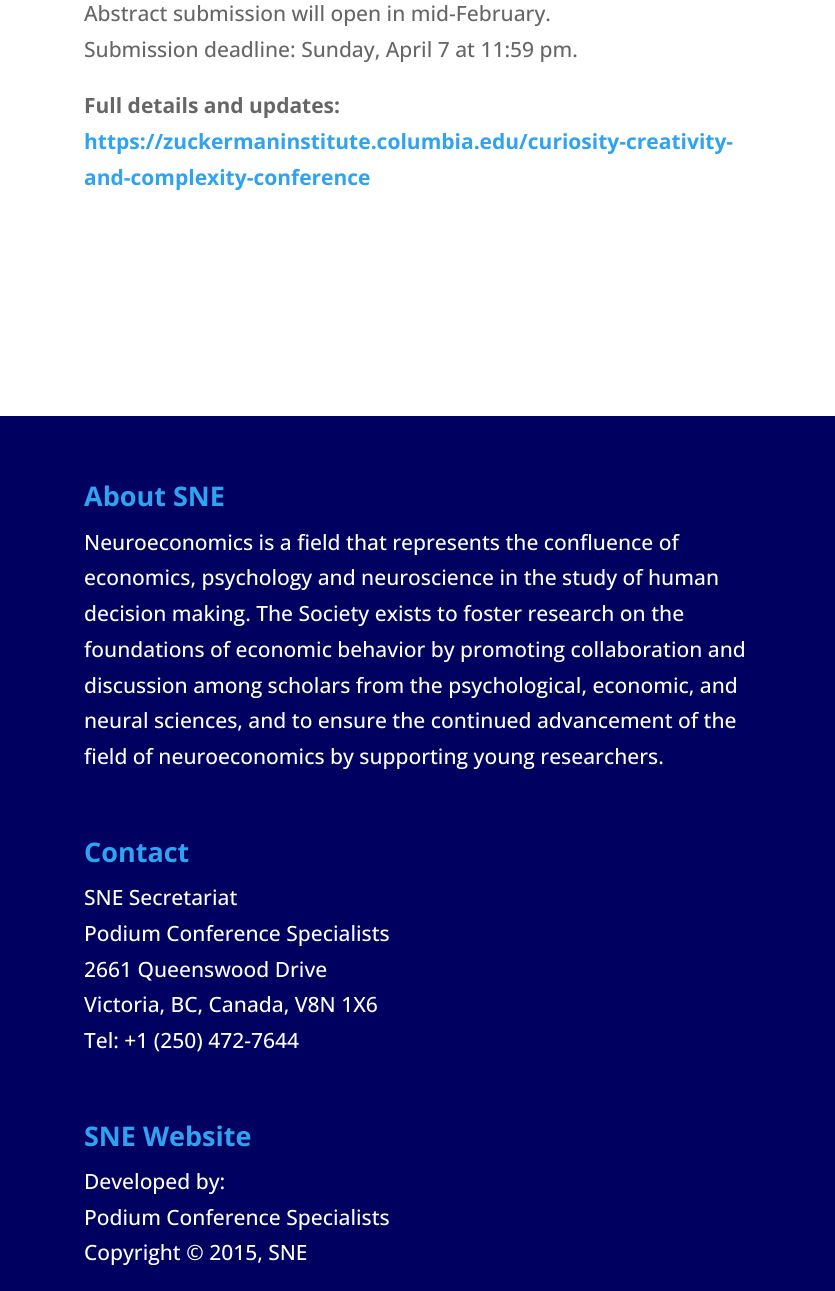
import math
import cairocffi as cairo

surface = cairo.ImageSurface(cairo.FORMAT_RGB24, 835, 1291)
ctx = cairo.Context(surface)
options = cairo.FontOptions()
options.set_hint_metrics(cairo.HINT_METRICS_OFF)
options.set_hint_style(cairo.HINT_STYLE_NONE)
ctx.set_font_options(options)
ctx.set_miter_limit(4)


def rgb(r, g, b):
    ctx.set_source_rgb(r / 255, g / 255, b / 255)


def face(family, size, italic, bold):
    ctx.select_font_face(family, cairo.FONT_SLANT_ITALIC if italic else cairo.FONT_SLANT_NORMAL, cairo.FONT_WEIGHT_BOLD if bold else cairo.FONT_WEIGHT_NORMAL)
    ctx.set_font_size(size)


def label(x, y, s):
    ctx.move_to(x, y)
    ctx.show_text(s)


def rect(x, y, w, h):
    ctx.rectangle(x, y, w, h)
    ctx.fill()


rgb(255, 255, 255)
ctx.paint()
face('Open Sans Medium', 21, 0, 0)
rgb(102, 102, 102)
label(84, 21, 'Abstract submission will open in mid-February.')
label(84, 57, 'Submission deadline: Sunday, April 7 at 11:59 pm.')
face('Open Sans', 21, 0, 1)
label(84, 113, 'Full details and updates:')
rgb(46, 163, 242)
label(84, 149, 'https://zuckermaninstitute.columbia.edu/curiosity-creativity-')
label(84, 185, 'and-complexity-conference')
rgb(0, 0, 96)
rect(0, 416, 835, 875)
face('Open Sans', 27, 0, 1)
rgb(46, 163, 242)
label(84, 506, 'About SNE')
face('Open Sans Medium', 21, 0, 0)
rgb(255, 255, 255)
label(84, 550, 'Neuroeconomics is a field that represents the confluence of')
label(84, 585, 'economics, psychology and neuroscience in the study of human')
label(84, 621, 'decision making. The Society exists to foster research on the')
label(84, 657, 'foundations of economic behavior by promoting collaboration and')
label(84, 693, 'discussion among scholars from the psychological, economic, and')
label(84, 728, 'neural sciences, and to ensure the continued advancement of the')
label(84, 764, 'field of neuroeconomics by supporting young researchers.')
face('Open Sans', 27, 0, 1)
rgb(46, 163, 242)
label(84, 862, 'Contact')
face('Open Sans Medium', 21, 0, 0)
rgb(255, 255, 255)
label(84, 905, 'SNE Secretariat')
label(84, 941, 'Podium Conference Specialists')
label(84, 977, '2661 Queenswood Drive')
label(84, 1012, 'Victoria, BC, Canada, V8N 1X6')
label(84, 1048, 'Tel: +1 (250) 472-7644')
face('Open Sans', 27, 0, 1)
rgb(46, 163, 242)
label(84, 1146, 'SNE Website')
face('Open Sans Medium', 21, 0, 0)
rgb(255, 255, 255)
label(84, 1189, 'Developed by:')
label(84, 1225, 'Podium Conference Specialists')
label(84, 1260, 'Copyright © 2015, SNE')
surface.write_to_png('render.png')
